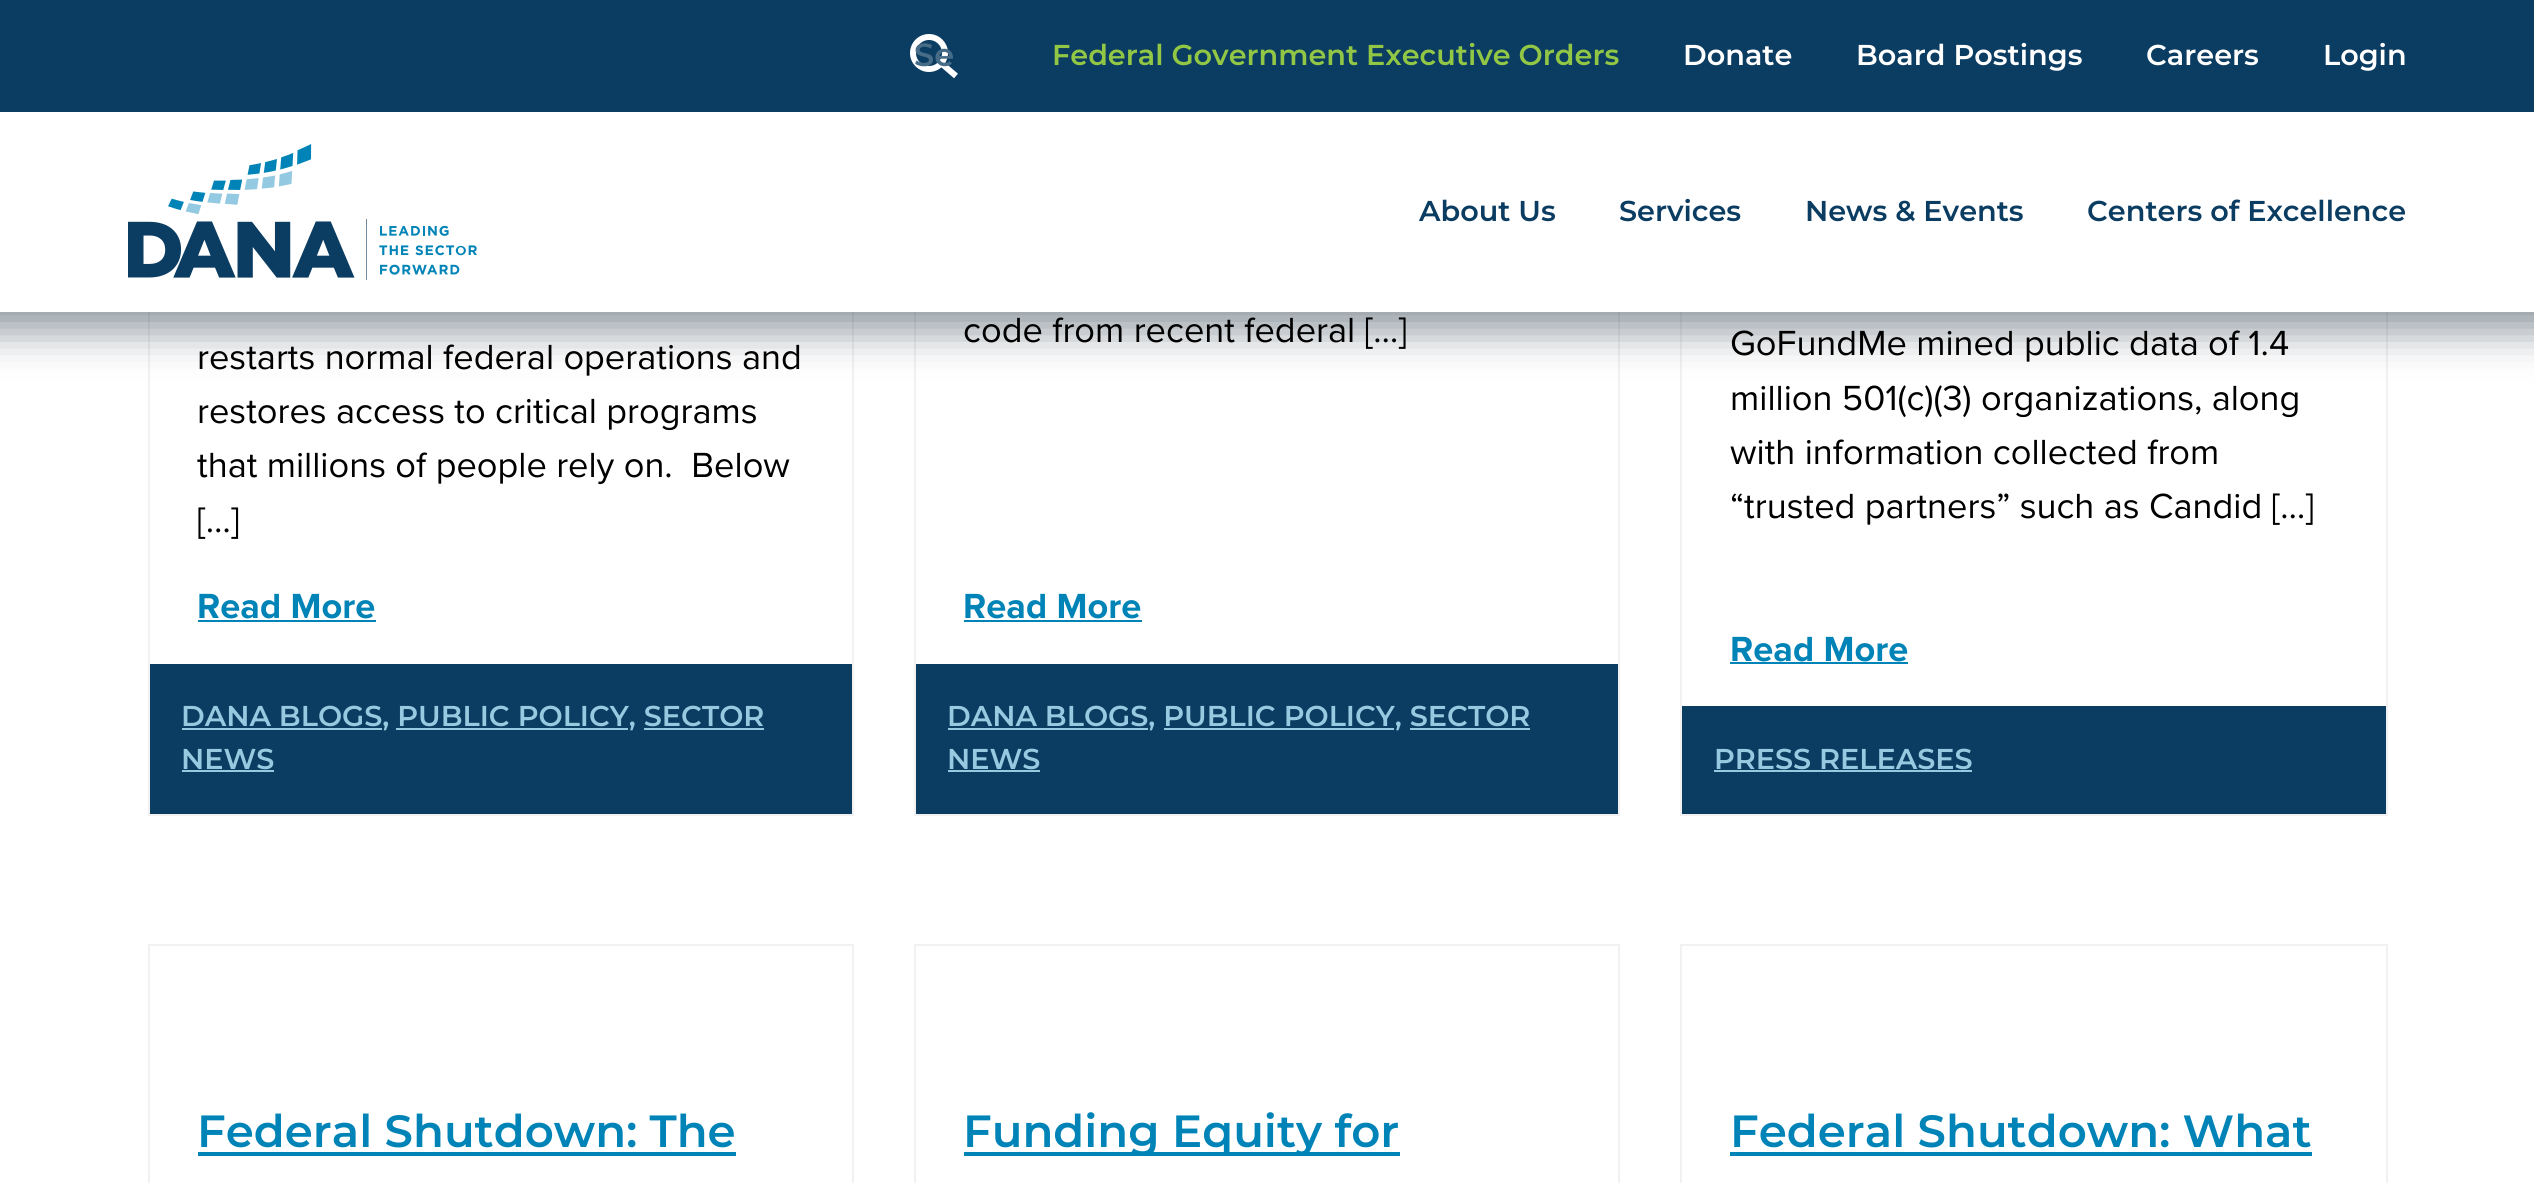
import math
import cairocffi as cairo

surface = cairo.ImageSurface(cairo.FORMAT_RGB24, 2534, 1183)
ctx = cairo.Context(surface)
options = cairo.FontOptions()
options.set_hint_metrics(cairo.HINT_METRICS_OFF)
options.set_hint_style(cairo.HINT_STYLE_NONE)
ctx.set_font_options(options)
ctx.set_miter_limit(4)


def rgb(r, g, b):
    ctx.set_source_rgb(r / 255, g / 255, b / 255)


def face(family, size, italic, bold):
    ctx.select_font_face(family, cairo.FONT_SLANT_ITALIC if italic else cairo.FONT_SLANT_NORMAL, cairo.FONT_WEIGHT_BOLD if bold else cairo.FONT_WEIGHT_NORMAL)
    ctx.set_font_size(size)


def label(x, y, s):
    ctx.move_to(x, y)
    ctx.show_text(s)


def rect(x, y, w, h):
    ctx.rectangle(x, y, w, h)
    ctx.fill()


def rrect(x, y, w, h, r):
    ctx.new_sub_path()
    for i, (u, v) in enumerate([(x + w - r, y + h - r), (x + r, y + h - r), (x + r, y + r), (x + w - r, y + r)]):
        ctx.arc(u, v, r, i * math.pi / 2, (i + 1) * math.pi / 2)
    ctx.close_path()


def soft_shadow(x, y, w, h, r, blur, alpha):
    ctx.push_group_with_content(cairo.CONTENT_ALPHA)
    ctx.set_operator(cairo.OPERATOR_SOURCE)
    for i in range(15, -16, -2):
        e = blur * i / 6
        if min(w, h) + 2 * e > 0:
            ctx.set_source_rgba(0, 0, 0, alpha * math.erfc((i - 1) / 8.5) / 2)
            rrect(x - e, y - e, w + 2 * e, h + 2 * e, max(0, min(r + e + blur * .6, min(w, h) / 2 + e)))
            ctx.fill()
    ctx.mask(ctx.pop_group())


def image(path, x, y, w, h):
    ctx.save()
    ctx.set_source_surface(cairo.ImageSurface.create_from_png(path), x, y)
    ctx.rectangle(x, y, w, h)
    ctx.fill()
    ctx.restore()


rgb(255, 255, 255)
ctx.paint()
ctx.rectangle(149, -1, 704, 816)
rgb(241, 241, 241)
ctx.stroke()
ctx.rectangle(915, -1, 704, 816)
ctx.stroke()
ctx.rectangle(1681, -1, 706, 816)
ctx.stroke()
rgb(38, 56, 70)
soft_shadow(-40, -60, 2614, 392, 0, 20, 0.5)
rgb(255, 255, 255)
rect(0, 112, 2534, 200)
rgb(11, 60, 97)
rect(0, 0, 2534, 112)
image('image0.png', 128, 144, 349, 136)
ctx.arc(929, 53, 16, 0, 2 * math.pi)
rgb(255, 255, 255)
ctx.set_line_width(6)
ctx.stroke()
ctx.new_path()
ctx.move_to(942, 64)
ctx.line_to(956, 76)
ctx.stroke()
face('Montserrat Thin', 32, 0, 0)
rgb(71, 108, 136)
label(914, 66, 'Se')
face('Montserrat Thin', 28.7, 0, 0)
rgb(146, 199, 70)
label(1052, 65, 'Federal Government Executive Orders')
rgb(255, 255, 255)
label(1683, 65, 'Donate')
label(1856, 65, 'Board Postings')
label(2146, 65, 'Careers')
label(2323, 65, 'Login')
rgb(11, 60, 97)
label(1419, 221, 'About Us')
label(1619, 221, 'Services')
label(1805, 221, 'News & Events')
label(2087, 221, 'Centers of Excellence')
face('Proxima Nova', 36.2, 0, 0)
rgb(0, 0, 0)
label(197, 369, 'restarts normal federal operations and')
label(197, 423, 'restores access to critical programs')
label(197, 477, 'that millions of people rely on.  Below')
label(197, 532, '[…]')
face('Proxima Nova', 36.2, 0, 1)
rgb(0, 131, 182)
label(197, 618, 'Read More')
rect(198, 620, 178, 2)
rgb(11, 60, 97)
rect(150, 664, 702, 150)
rgb(151, 202, 224)
rect(182, 728, 200, 2)
face('Montserrat Thin', 28.7, 0, 0)
label(181, 726, 'DANA BLOGS, PUBLIC POLICY, SECTOR')
rect(396, 728, 232, 2)
label(181, 769, 'NEWS')
rect(644, 728, 120, 2)
rect(182, 770, 92, 2)
face('Proxima Nova', 36.2, 0, 0)
rgb(0, 0, 0)
label(963, 342, 'code from recent federal […]')
face('Proxima Nova', 36.2, 0, 1)
rgb(0, 131, 182)
label(963, 618, 'Read More')
rect(964, 620, 178, 2)
rgb(11, 60, 97)
rect(916, 664, 702, 150)
rgb(151, 202, 224)
rect(948, 728, 200, 2)
face('Montserrat Thin', 28.7, 0, 0)
label(947, 726, 'DANA BLOGS, PUBLIC POLICY, SECTOR')
rect(1164, 728, 230, 2)
label(947, 769, 'NEWS')
rect(1410, 728, 120, 2)
rect(948, 770, 92, 2)
face('Proxima Nova', 36.2, 0, 0)
rgb(0, 0, 0)
label(1730, 355, 'GoFundMe mined public data of 1.4')
label(1730, 410, 'million 501(c)(3) organizations, along')
label(1730, 464, 'with information collected from')
label(1730, 518, '“trusted partners” such as Candid […]')
face('Proxima Nova', 36.2, 0, 1)
rgb(0, 131, 182)
label(1730, 661, 'Read More')
rect(1730, 662, 178, 2)
rgb(11, 60, 97)
rect(1682, 706, 704, 108)
face('Montserrat Thin', 28.7, 0, 0)
rgb(151, 202, 224)
label(1714, 769, 'PRESS RELEASES')
rect(1714, 770, 258, 2)
ctx.rectangle(149, 945, 704, 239)
rgb(241, 241, 241)
ctx.set_line_width(2)
ctx.stroke()
face('Montserrat Thin', 45.1, 0, 0)
rgb(0, 131, 182)
label(197, 1147, 'Federal Shutdown: The')
rect(198, 1152, 538, 4)
ctx.rectangle(915, 945, 704, 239)
rgb(241, 241, 241)
ctx.stroke()
rgb(0, 131, 182)
rect(964, 1152, 436, 4)
label(963, 1147, 'Funding Equity for')
ctx.rectangle(1681, 945, 706, 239)
rgb(241, 241, 241)
ctx.stroke()
rgb(0, 131, 182)
label(1730, 1147, 'Federal Shutdown: What')
rect(1730, 1152, 582, 4)
surface.write_to_png('render.png')
